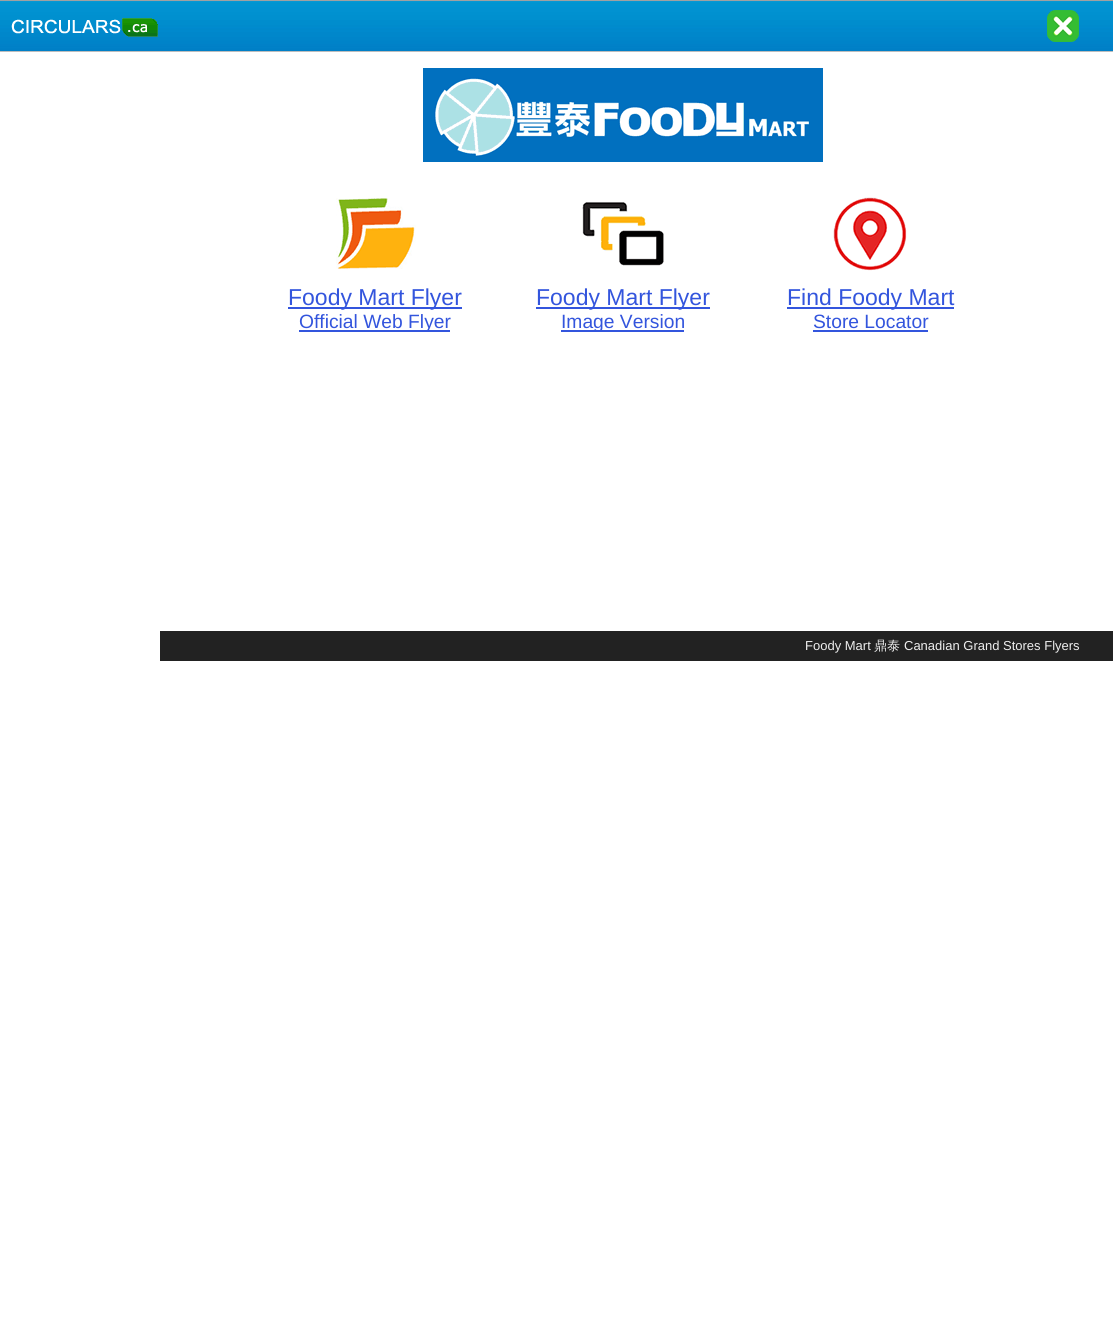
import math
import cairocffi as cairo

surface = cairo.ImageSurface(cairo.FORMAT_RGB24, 1113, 1338)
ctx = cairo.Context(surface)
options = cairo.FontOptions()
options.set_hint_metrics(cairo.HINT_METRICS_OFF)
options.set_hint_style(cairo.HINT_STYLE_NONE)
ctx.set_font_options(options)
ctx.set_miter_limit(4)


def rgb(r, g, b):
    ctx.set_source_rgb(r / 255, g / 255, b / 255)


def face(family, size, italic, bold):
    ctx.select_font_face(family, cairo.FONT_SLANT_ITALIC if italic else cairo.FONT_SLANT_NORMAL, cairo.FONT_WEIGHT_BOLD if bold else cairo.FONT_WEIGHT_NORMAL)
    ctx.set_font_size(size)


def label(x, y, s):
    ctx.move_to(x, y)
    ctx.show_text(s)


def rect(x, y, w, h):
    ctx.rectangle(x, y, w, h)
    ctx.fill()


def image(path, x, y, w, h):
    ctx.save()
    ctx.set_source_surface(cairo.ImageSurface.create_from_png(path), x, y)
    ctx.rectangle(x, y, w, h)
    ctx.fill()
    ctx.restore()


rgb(255, 255, 255)
ctx.paint()
image('image0.png', 0, 0, 1113, 52)
image('image1.png', 11, 18, 147, 19)
image('image2.png', 1047, 10, 32, 32)
image('image3.png', 423, 68, 400, 94)
image('image4.png', 336, 198, 80, 71)
rgb(51, 85, 221)
rect(288, 307, 174, 2)
face('Liberation Sans', 23, 0, 0)
label(288, 305, 'Foody Mart Flyer')
rect(299, 330, 151, 2)
face('Liberation Sans', 19.25, 0, 0)
label(299, 328, 'Official Web Flyer')
image('image5.png', 582, 202, 82, 64)
rect(536, 307, 174, 2)
face('Liberation Sans', 23, 0, 0)
label(536, 305, 'Foody Mart Flyer')
rect(561, 330, 123, 2)
face('Liberation Sans', 19.25, 0, 0)
label(561, 328, 'Image Version')
image('image6.png', 833, 197, 74, 74)
rect(787, 307, 167, 2)
face('Liberation Sans', 23, 0, 0)
label(787, 305, 'Find Foody Mart')
face('Liberation Sans', 19.25, 0, 0)
label(813, 328, 'Store Locator')
rect(813, 330, 115, 2)
rgb(34, 34, 34)
rect(160, 631, 953, 30)
face('Liberation Sans', 13, 0, 0)
rgb(238, 238, 238)
label(805, 650, 'Foody Mart')
face('WenQuanYi Zen Hei Medium', 13, 0, 0)
label(874, 650, '鼎泰')
face('Liberation Sans', 13, 0, 0)
label(904, 650, 'Canadian Grand Stores Flyers')
surface.write_to_png('render.png')
